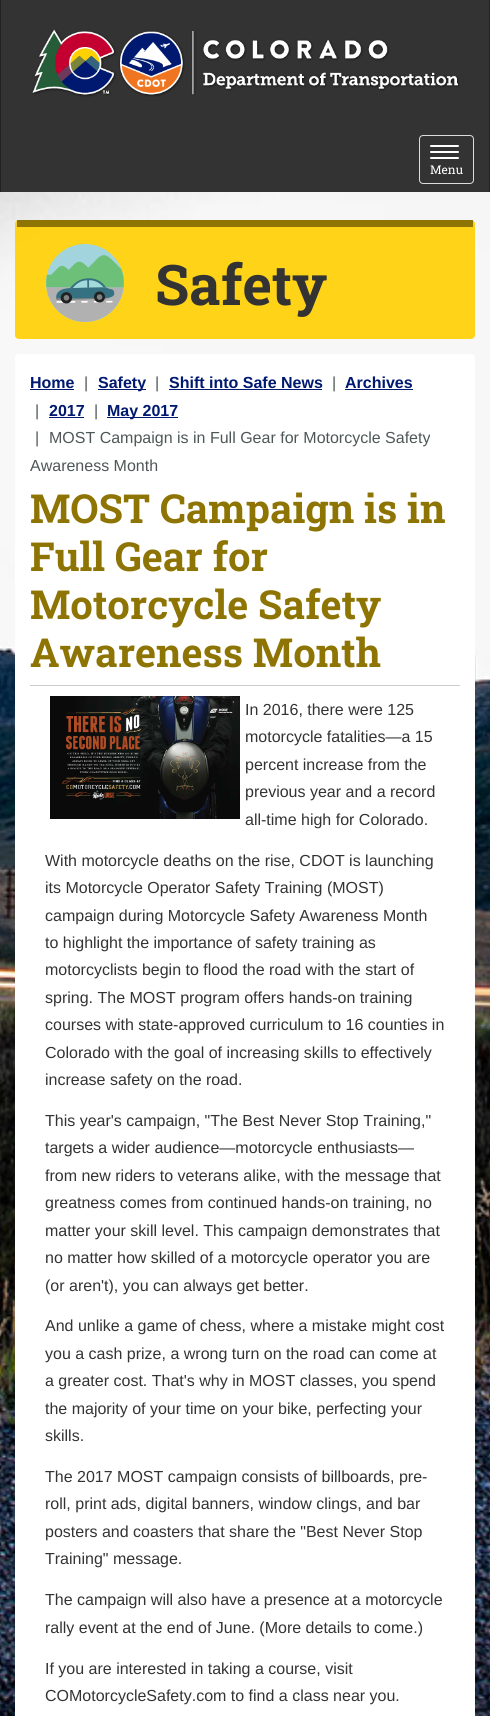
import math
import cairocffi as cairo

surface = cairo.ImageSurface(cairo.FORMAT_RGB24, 490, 1716)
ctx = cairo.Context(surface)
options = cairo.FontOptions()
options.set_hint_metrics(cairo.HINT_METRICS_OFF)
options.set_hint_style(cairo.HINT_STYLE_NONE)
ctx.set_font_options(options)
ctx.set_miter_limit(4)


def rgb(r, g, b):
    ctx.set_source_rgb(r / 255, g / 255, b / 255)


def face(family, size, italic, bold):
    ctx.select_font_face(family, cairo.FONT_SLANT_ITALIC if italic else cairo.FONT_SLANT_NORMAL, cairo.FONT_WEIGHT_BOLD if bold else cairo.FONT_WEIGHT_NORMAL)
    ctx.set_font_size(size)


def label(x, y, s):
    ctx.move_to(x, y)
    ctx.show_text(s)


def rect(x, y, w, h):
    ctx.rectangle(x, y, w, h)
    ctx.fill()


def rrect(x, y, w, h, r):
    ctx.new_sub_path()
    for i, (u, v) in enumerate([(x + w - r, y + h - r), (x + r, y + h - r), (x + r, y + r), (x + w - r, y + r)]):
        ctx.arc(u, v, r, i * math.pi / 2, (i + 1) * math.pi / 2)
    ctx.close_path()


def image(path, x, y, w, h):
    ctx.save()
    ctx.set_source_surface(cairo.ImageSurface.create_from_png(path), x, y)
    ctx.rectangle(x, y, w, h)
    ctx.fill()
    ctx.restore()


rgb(255, 255, 255)
ctx.paint()
image('image0.png', 0, 192, 490, 1524)
rgb(51, 51, 51)
rect(1, 0, 488, 192)
rgb(34, 34, 34)
rect(489, 0, 1, 192)
rect(0, 0, 1, 192)
image('image1.png', 32, 29, 428, 68)
rrect(419.5, 135.5, 54, 48, 3.5)
rgb(221, 221, 221)
ctx.set_line_width(1)
ctx.stroke()
rgb(255, 255, 255)
rrect(430, 145, 29, 2, 1)
ctx.fill()
rrect(430, 151, 29, 2, 1)
ctx.fill()
rrect(430, 157, 29, 2, 1)
ctx.fill()
face('Roboto Slab', 12, 0, 0)
label(430, 174, 'Menu')
ctx.set_source_rgba(1, 0.812, 0.004, 0.9)
rrect(15, 220, 460, 119, 4)
ctx.fill()
image('image2.png', 46, 244, 78, 78)
rgb(142, 116, 3)
rect(17, 220, 456, 7)
face('Roboto Slab', 56, 0, 1)
rgb(51, 51, 51)
label(155, 305, 'Safety')
rgb(255, 255, 255)
rrect(15, 354, 460, 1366, 4)
ctx.fill()
face('Liberation Sans', 16, 0, 1)
rgb(0, 25, 112)
label(30, 388, 'Home')
rect(30, 389, 44, 1)
face('Liberation Sans', 16, 0, 0)
rgb(78, 87, 87)
label(84, 388, '|')
rgb(0, 25, 112)
rect(98, 389, 48, 1)
face('Liberation Sans', 16, 0, 1)
label(98, 388, 'Safety')
face('Liberation Sans', 16, 0, 0)
rgb(78, 87, 87)
label(155, 388, '|')
face('Liberation Sans', 16, 0, 1)
rgb(0, 25, 112)
label(169, 388, 'Shift into Safe News')
rect(169, 389, 153, 1)
face('Liberation Sans', 16, 0, 0)
rgb(78, 87, 87)
label(332, 388, '|')
face('Liberation Sans', 16, 0, 1)
rgb(0, 25, 112)
label(345, 388, 'Archives')
rect(345, 389, 68, 1)
face('Liberation Sans', 16, 0, 0)
rgb(78, 87, 87)
label(35, 416, '|')
face('Liberation Sans', 16, 0, 1)
rgb(0, 25, 112)
label(49, 416, '2017')
rect(49, 417, 35, 1)
face('Liberation Sans', 16, 0, 0)
rgb(78, 87, 87)
label(94, 416, '|')
rgb(0, 25, 112)
rect(107, 417, 71, 1)
face('Liberation Sans', 16, 0, 1)
label(107, 416, 'May 2017')
face('Liberation Sans', 16, 0, 0)
rgb(78, 87, 87)
label(35, 443, '|')
label(49, 443, 'MOST Campaign is in Full Gear for Motorcycle Safety')
label(30, 471, 'Awareness Month')
rgb(204, 204, 204)
rect(30, 685, 430, 1)
face('Roboto Slab', 40, 0, 1)
rgb(142, 116, 3)
label(30, 523, 'MOST Campaign is in')
label(30, 571, 'Full Gear for')
label(30, 619, 'Motorcycle Safety')
label(30, 667, 'Awareness Month')
image('image3.png', 50, 696, 190, 123)
face('Liberation Sans', 16, 0, 0)
rgb(51, 51, 51)
label(245, 715, 'In 2016, there were 125')
label(245, 742, 'motorcycle fatalities—a 15')
label(245, 770, 'percent increase from the')
label(245, 797, 'previous year and a record')
label(245, 825, 'all-time high for Colorado.')
label(45, 866, 'With motorcycle deaths on the rise, CDOT is launching')
label(45, 893, 'its Motorcycle Operator Safety Training (MOST)')
label(45, 921, 'campaign during Motorcycle Safety Awareness Month')
label(45, 948, 'to highlight the importance of safety training as')
label(45, 975, 'motorcyclists begin to flood the road with the start of')
label(45, 1003, 'spring. The MOST program offers hands-on training')
label(45, 1030, 'courses with state-approved curriculum to 16 counties in')
label(45, 1058, 'Colorado with the goal of increasing skills to effectively')
label(45, 1085, 'increase safety on the road.')
label(45, 1126, 'This year\'s campaign, "The Best Never Stop Training,"')
label(45, 1153, 'targets a wider audience—motorcycle enthusiasts—')
label(45, 1181, 'from new riders to veterans alike, with the message that')
label(45, 1208, 'greatness comes from continued hands-on training, no')
label(45, 1236, 'matter your skill level. This campaign demonstrates that')
label(45, 1263, 'no matter how skilled of a motorcycle operator you are')
label(45, 1291, '(or aren\'t), you can always get better.')
label(45, 1331, 'And unlike a game of chess, where a mistake might cost')
label(45, 1359, 'you a cash prize, a wrong turn on the road can come at')
label(45, 1386, 'a greater cost. That\'s why in MOST classes, you spend')
label(45, 1414, 'the majority of your time on your bike, perfecting your')
label(45, 1441, 'skills.')
label(45, 1482, 'The 2017 MOST campaign consists of billboards, pre-')
label(45, 1509, 'roll, print ads, digital banners, window clings, and bar')
label(45, 1537, 'posters and coasters that share the "Best Never Stop')
label(45, 1564, 'Training" message.')
label(45, 1605, 'The campaign will also have a presence at a motorcycle')
label(45, 1633, 'rally event at the end of June. (More details to come.)')
label(45, 1674, 'If you are interested in taking a course, visit')
label(45, 1701, 'COMotorcycleSafety.com to find a class near you.')
surface.write_to_png('render.png')
